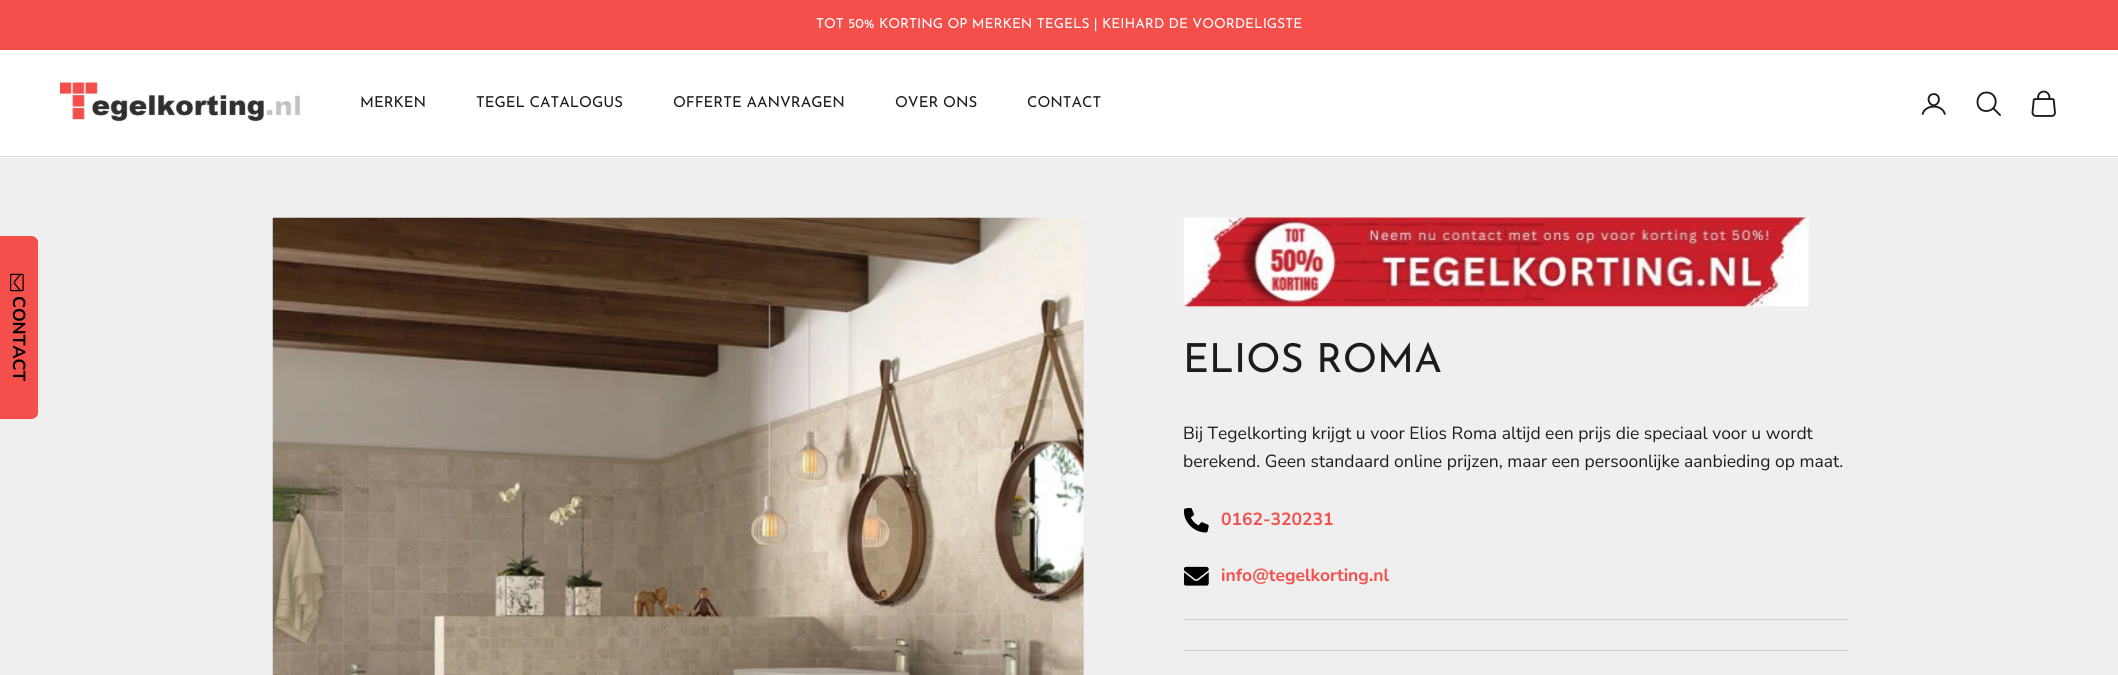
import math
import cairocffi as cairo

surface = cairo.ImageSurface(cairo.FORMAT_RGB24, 2118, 675)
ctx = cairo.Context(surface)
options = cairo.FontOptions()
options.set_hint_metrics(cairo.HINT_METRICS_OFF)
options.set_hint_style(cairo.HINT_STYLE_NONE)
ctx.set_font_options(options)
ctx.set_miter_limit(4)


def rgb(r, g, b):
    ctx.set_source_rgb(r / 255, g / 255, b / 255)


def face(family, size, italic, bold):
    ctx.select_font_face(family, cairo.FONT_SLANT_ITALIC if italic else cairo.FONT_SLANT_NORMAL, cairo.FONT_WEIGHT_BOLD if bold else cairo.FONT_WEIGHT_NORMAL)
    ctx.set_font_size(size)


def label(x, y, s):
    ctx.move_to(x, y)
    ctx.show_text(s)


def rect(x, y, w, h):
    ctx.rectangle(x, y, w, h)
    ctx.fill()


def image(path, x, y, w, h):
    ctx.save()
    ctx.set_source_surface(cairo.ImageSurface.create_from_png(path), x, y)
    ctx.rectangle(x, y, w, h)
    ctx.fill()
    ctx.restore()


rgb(239, 239, 239)
ctx.paint()
rgb(244, 79, 74)
rect(0, 0, 2118, 50)
face('Josefin Sans', 13.75, 0, 0)
rgb(255, 255, 255)
label(816, 28, 'TOT 50% KORTING OP MERKEN TEGELS | KEIHARD DE VOORDELIGSTE')
rect(0, 50, 2118, 108)
rgb(221, 221, 221)
rect(0, 156, 2118, 1)
image('image0.png', 60, 82, 240, 40)
face('Josefin Sans', 15, 0, 0)
rgb(28, 28, 28)
label(360, 107, 'MERKEN')
label(476, 107, 'TEGEL CATALOGUS')
label(673, 107, 'OFFERTE AANVRAGEN')
label(895, 107, 'OVER ONS')
label(1027, 107, 'CONTACT')
image('image1.png', 1921, 93, 25, 22)
ctx.new_path()
ctx.move_to(1986.5, 92.5)
ctx.curve_to(1974.5, 92.5, 1974.5, 111.5, 1986.5, 111)
ctx.curve_to(1999, 110.5, 1998.5, 92.5, 1986.5, 92.5)
ctx.close_path()
ctx.set_line_width(1.9)
ctx.stroke()
ctx.new_path()
ctx.move_to(1993.5, 108.5)
ctx.line_to(2000, 115)
ctx.set_line_cap(cairo.LINE_CAP_ROUND)
ctx.stroke()
image('image2.png', 2031, 90, 25, 27)
rgb(244, 79, 74)
ctx.new_path()
ctx.move_to(38, 242)
ctx.line_to(38, 413)
ctx.curve_to(38, 416, 35, 419, 31, 419)
ctx.line_to(-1, 419)
ctx.line_to(-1, 236)
ctx.line_to(31, 236)
ctx.curve_to(35, 236, 38, 239, 38, 242)
ctx.close_path()
ctx.fill()
image('image3.png', 10, 273, 14, 19)
face('Nunito Sans', 17.5, 0, 1)
rgb(0, 0, 0)
ctx.save()
ctx.translate(13, 296)
ctx.rotate(90 * math.pi / 180)
label(0, 0, 'CONTACT')
ctx.restore()
image('image4.png', 272, 217, 812, 458)
image('image5.png', 1183, 217, 626, 91)
face('Josefin Sans', 40, 0, 0)
rgb(28, 28, 28)
label(1183, 372, 'ELIOS ROMA')
face('Nunito Sans', 17.5, 0, 0)
label(1183, 439, 'Bij Tegelkorting krijgt u voor Elios Roma altijd een prijs die speciaal voor u wordt')
label(1183, 467, 'berekend. Geen standaard online prijzen, maar een persoonlijke aanbieding op maat.')
image('image6.png', 1184, 508, 25, 25)
face('Nunito Sans', 17.5, 0, 1)
rgb(244, 79, 74)
label(1221, 525, '0162-320231')
image('image7.png', 1184, 566, 25, 20)
label(1221, 581, 'info@tegelkorting.nl')
rgb(207, 207, 207)
rect(1184, 619, 664, 1)
rect(1184, 650, 664, 1)
surface.write_to_png('render.png')
